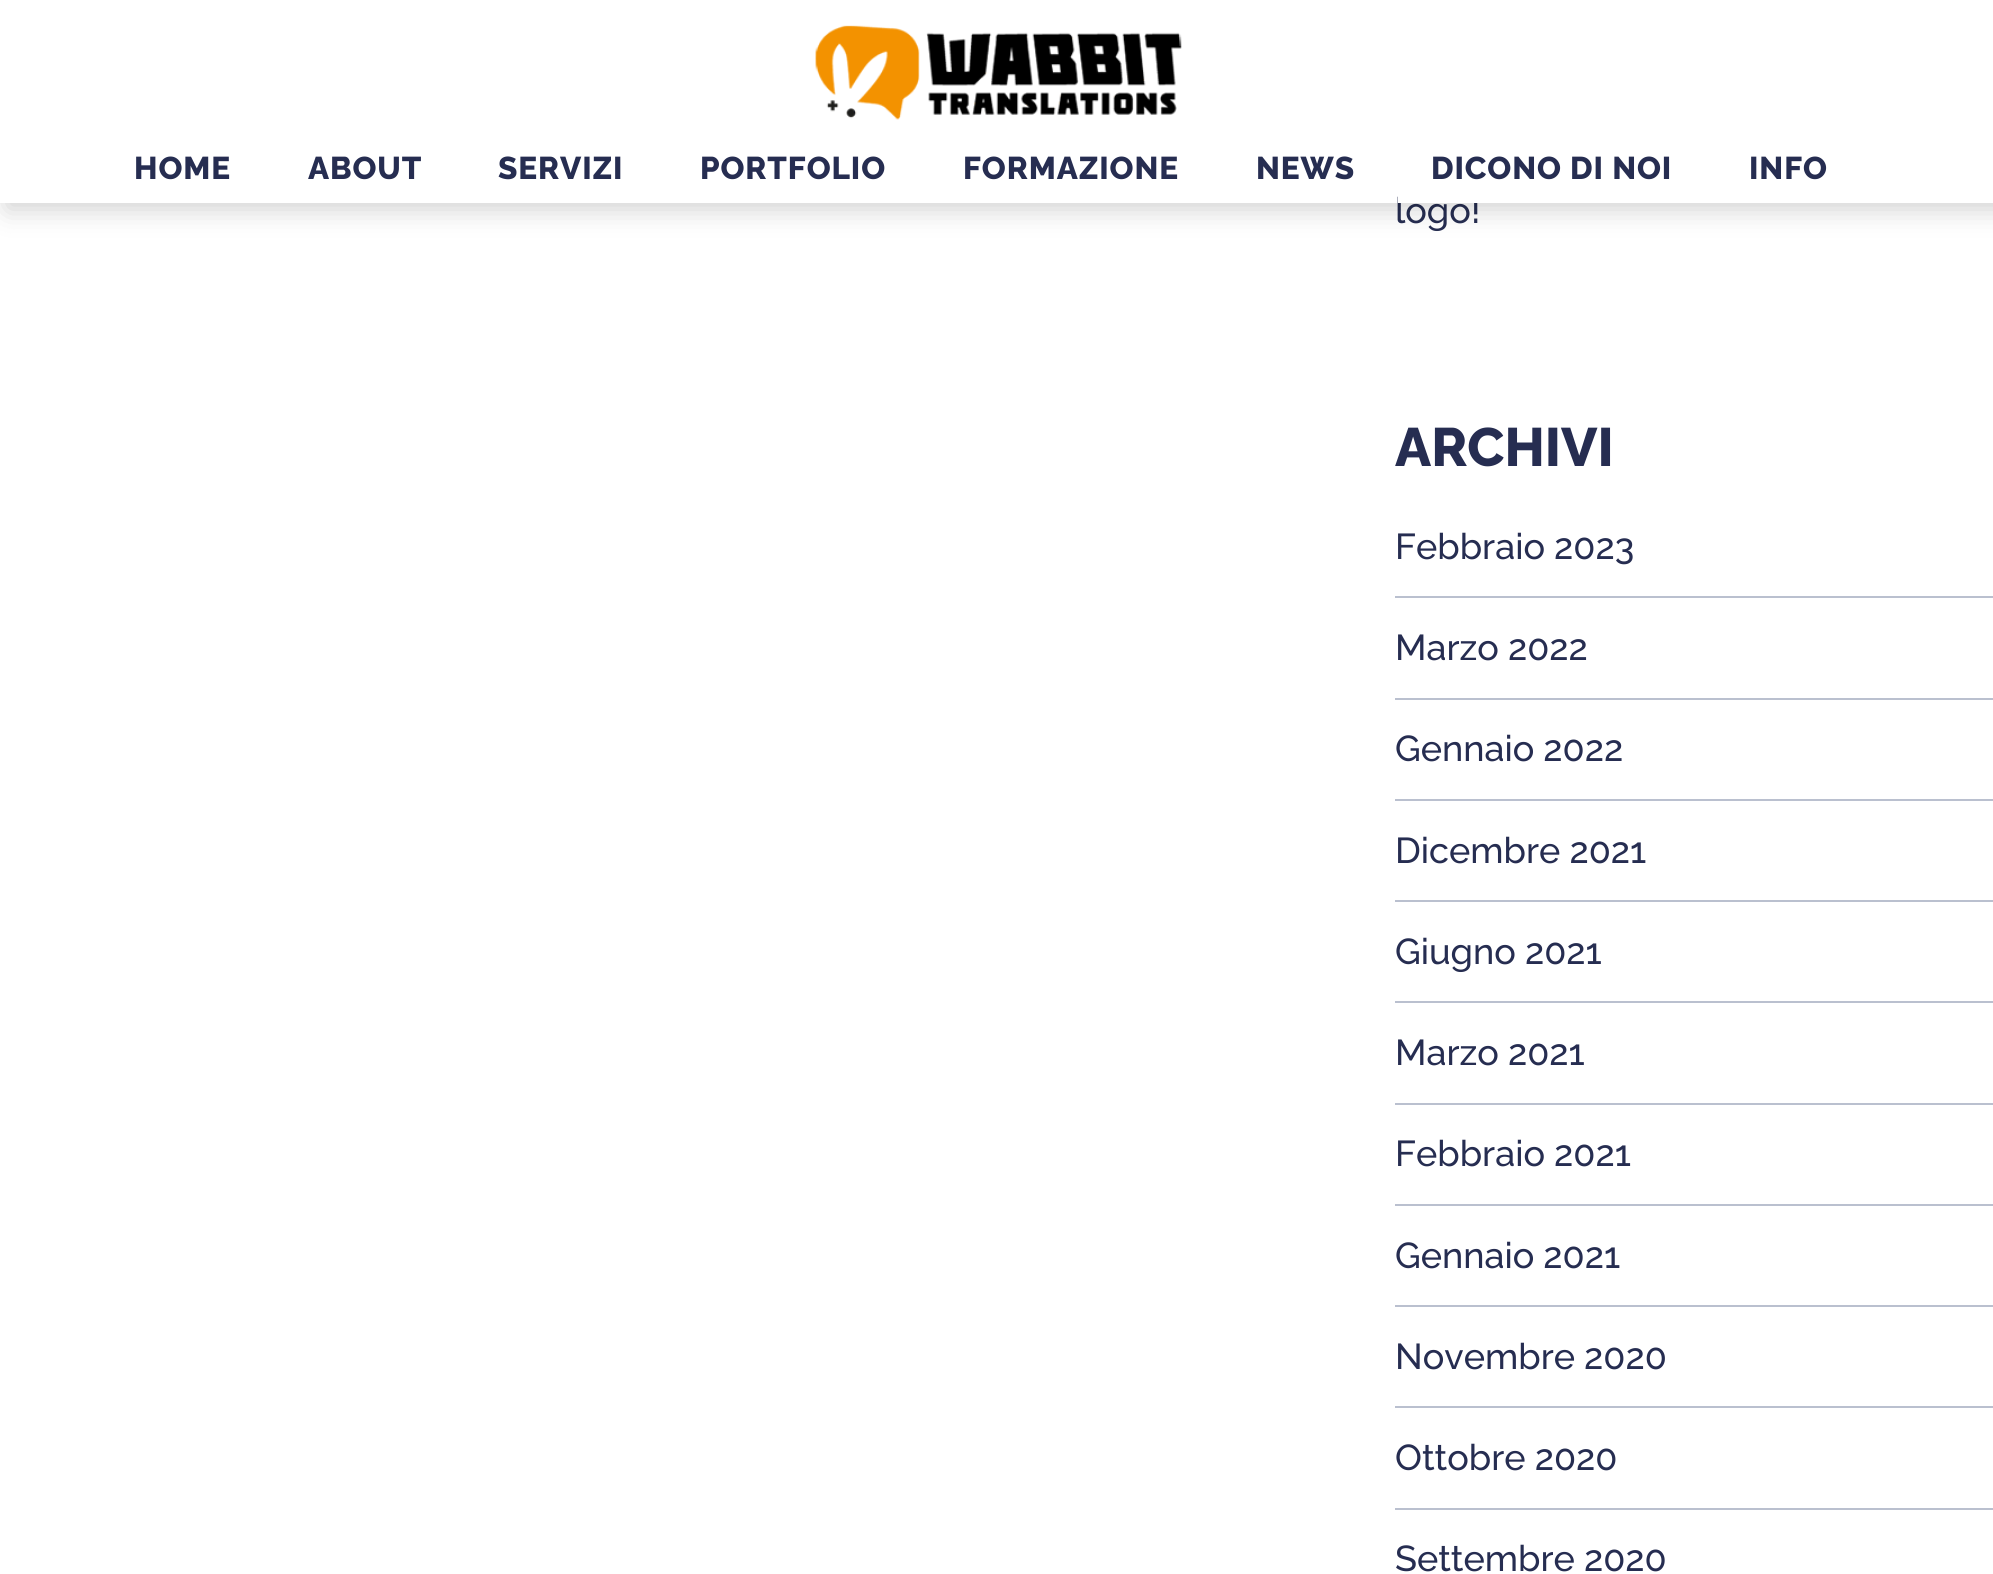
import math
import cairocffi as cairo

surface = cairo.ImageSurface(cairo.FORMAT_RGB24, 1993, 1574)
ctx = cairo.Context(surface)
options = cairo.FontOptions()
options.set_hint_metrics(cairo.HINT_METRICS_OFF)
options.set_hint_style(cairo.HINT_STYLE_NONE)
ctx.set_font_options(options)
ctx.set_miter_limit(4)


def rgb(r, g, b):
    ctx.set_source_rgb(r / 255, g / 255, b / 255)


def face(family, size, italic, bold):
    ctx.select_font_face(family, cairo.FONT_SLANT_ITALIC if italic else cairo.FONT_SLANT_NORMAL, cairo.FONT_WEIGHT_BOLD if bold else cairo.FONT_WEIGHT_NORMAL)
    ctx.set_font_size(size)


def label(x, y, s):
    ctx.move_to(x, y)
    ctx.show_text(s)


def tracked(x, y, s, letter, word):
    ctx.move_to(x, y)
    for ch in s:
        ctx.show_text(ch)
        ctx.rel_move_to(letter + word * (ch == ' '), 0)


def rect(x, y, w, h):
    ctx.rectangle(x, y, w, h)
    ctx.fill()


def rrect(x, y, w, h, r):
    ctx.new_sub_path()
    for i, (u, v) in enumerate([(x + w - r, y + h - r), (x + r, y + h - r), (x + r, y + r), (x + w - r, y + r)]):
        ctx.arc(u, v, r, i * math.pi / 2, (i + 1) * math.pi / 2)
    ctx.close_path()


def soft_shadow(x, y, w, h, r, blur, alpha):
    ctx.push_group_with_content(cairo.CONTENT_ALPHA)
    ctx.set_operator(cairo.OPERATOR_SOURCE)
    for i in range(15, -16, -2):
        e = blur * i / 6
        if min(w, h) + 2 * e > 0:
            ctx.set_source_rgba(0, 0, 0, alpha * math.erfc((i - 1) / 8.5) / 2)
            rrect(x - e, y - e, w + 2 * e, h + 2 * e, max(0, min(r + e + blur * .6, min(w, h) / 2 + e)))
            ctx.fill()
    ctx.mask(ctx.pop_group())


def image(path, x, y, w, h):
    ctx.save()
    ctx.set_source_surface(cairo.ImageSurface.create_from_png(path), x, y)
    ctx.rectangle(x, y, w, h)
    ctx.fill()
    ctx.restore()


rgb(255, 255, 255)
ctx.paint()
face('Raleway Medium', 36, 0, 0)
rgb(38, 45, 81)
label(1395, 223, 'logo!')
rgb(255, 255, 255)
rect(1398, 196, 80, 7)
ctx.save()
ctx.set_fill_rule(cairo.FILL_RULE_EVEN_ODD)
ctx.new_path()
ctx.move_to(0, 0)
ctx.line_to(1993, 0)
ctx.line_to(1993, 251)
ctx.line_to(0, 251)
ctx.close_path()
ctx.move_to(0, 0)
ctx.line_to(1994, 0)
ctx.line_to(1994, 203)
ctx.line_to(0, 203)
ctx.close_path()
ctx.clip()
rgb(0, 0, 0)
soft_shadow(7, 7, 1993, 202, 0, 13.5, 0.19)
ctx.restore()
image('image0.png', 815, 25, 367, 95)
face('Raleway ExtraBold', 31.5, 0, 0)
rgb(38, 45, 81)
tracked(134, 179, 'HOME', 0.9, 0)
tracked(308, 179, 'ABOUT', 0.9, 0)
tracked(498, 179, 'SERVIZI', 0.9, 0)
tracked(700, 179, 'PORTFOLIO', 0.9, 0)
tracked(963, 179, 'FORMAZIONE', 0.9, 0)
tracked(1256, 179, 'NEWS', 0.9, 0)
tracked(1431, 179, 'DICONO DI NOI', 0.9, 0)
tracked(1749, 179, 'INFO', 0.9, 0)
face('Raleway ExtraBold', 54, 0, 0)
label(1395, 466, 'ARCHIVI')
rgb(186, 192, 207)
rect(1395, 596, 598, 2)
face('Raleway Medium', 36, 0, 0)
rgb(38, 45, 81)
label(1395, 559, 'Febbraio 2023')
rgb(186, 192, 207)
rect(1395, 698, 598, 2)
rgb(38, 45, 81)
label(1395, 660, 'Marzo 2022')
rgb(186, 192, 207)
rect(1395, 799, 598, 2)
rgb(38, 45, 81)
label(1395, 761, 'Gennaio 2022')
rgb(186, 192, 207)
rect(1395, 900, 598, 2)
rgb(38, 45, 81)
label(1395, 863, 'Dicembre 2021')
rgb(186, 192, 207)
rect(1395, 1001, 598, 2)
rgb(38, 45, 81)
label(1395, 964, 'Giugno 2021')
rgb(186, 192, 207)
rect(1395, 1103, 598, 2)
rgb(38, 45, 81)
label(1395, 1065, 'Marzo 2021')
rgb(186, 192, 207)
rect(1395, 1204, 598, 2)
rgb(38, 45, 81)
label(1395, 1166, 'Febbraio 2021')
rgb(186, 192, 207)
rect(1395, 1305, 598, 2)
rgb(38, 45, 81)
label(1395, 1268, 'Gennaio 2021')
rgb(186, 192, 207)
rect(1395, 1406, 598, 2)
rgb(38, 45, 81)
label(1395, 1369, 'Novembre 2020')
rgb(186, 192, 207)
rect(1395, 1508, 598, 2)
rgb(38, 45, 81)
label(1395, 1470, 'Ottobre 2020')
label(1395, 1571, 'Settembre 2020')
surface.write_to_png('render.png')
